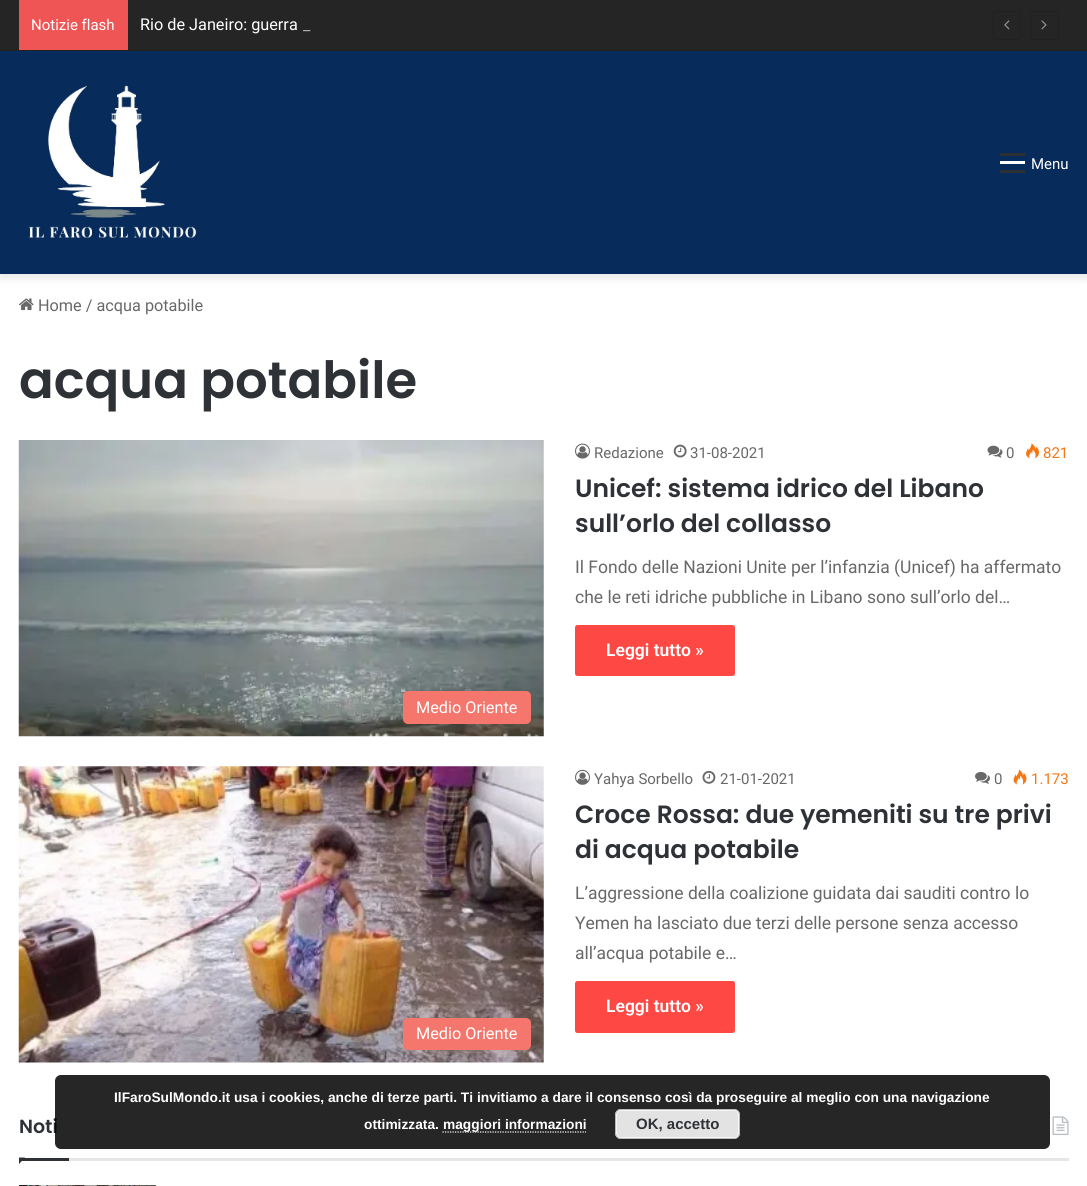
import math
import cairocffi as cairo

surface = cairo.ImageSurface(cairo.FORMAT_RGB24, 1087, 1186)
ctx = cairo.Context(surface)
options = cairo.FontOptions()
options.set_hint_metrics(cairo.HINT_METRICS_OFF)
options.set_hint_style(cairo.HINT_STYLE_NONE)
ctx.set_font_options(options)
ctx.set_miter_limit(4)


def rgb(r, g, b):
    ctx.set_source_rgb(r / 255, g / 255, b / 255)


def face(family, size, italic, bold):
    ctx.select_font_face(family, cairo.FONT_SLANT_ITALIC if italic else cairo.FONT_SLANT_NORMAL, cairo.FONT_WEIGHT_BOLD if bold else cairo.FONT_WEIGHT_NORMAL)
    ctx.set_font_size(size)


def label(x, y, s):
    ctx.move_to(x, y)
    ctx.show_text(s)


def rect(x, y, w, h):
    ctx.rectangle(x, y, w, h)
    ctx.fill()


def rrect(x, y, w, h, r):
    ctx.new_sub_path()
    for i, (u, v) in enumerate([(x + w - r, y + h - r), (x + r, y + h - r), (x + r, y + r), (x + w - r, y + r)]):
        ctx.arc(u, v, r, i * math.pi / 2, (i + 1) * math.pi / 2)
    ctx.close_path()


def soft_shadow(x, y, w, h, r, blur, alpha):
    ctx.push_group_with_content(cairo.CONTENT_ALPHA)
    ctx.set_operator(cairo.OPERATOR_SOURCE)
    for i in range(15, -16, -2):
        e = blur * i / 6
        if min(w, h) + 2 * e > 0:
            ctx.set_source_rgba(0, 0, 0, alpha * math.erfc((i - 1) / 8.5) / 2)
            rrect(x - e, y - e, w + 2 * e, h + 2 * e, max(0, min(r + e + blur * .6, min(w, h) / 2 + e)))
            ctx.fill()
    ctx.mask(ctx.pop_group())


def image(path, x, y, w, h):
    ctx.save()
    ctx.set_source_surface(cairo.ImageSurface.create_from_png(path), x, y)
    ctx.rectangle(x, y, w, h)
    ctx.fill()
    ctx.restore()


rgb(255, 255, 255)
ctx.paint()
rgb(0, 0, 0)
soft_shadow(0, 55, 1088, 223, 0, 4.5, 0.1)
rgb(37, 37, 37)
rect(0, 0, 1087, 50)
rgb(33, 33, 33)
rect(0, 50, 1087, 1)
rgb(240, 85, 85)
rect(19, 0, 109, 50)
face('Roboto', 15, 0, 0)
rgb(255, 255, 255)
label(31, 30, 'Notizie flash')
face('Roboto', 16.25, 0, 0)
label(140, 30, 'Rio de Janeiro: guerra')
rgb(170, 170, 170)
label(303, 30, '_')
rrect(993.5, 11.5, 27, 28, 2)
rgb(33, 33, 33)
ctx.set_line_width(1)
ctx.stroke()
image('image0.png', 1004, 20, 6, 10)
rrect(1030.5, 11.5, 28, 28, 2)
ctx.stroke()
image('image1.png', 1041, 20, 6, 10)
rgb(7, 43, 91)
rect(0, 51, 1087, 223)
image('image2.png', 28, 85, 169, 153)
rgb(255, 255, 255)
rect(1000, 161, 25, 3)
rgb(44, 47, 52)
rect(1000, 153, 25, 3)
rect(1000, 170, 25, 3)
face('Roboto', 15, 0, 0)
rgb(255, 255, 255)
label(1031, 169, 'Menu')
image('image3.png', 19, 298, 15, 13)
face('Roboto', 16.25, 0, 0)
rgb(104, 104, 104)
label(38, 311, 'Home / acqua potabile')
face('Poppins SemiBold', 51.25, 0, 0)
rgb(46, 49, 54)
label(19, 398, 'acqua potabile')
image('image4.png', 575, 443, 15, 16)
face('Roboto', 15, 0, 0)
rgb(104, 104, 104)
label(594, 458, 'Redazione')
image('image5.png', 673, 444, 14, 14)
label(690, 458, '31-08-2021')
image('image6.png', 987, 445, 16, 13)
label(1006, 458, '0')
image('image7.png', 1026, 443, 13, 16)
rgb(244, 118, 20)
label(1043, 458, '821')
face('Poppins SemiBold', 25, 0, 0)
rgb(46, 49, 54)
label(575, 497, 'Unicef: sistema idrico del Libano')
label(575, 532, 'sull’orlo del collasso')
face('Roboto', 17.5, 0, 0)
rgb(104, 104, 104)
label(575, 573, 'Il Fondo delle Nazioni Unite per l’infanzia (Unicef) ha affermato')
label(575, 603, 'che le reti idriche pubbliche in Libano sono sull’orlo del…')
rgb(254, 72, 67)
rrect(575, 625, 160, 51, 2.5)
ctx.fill()
face('Roboto SemiBold', 17.5, 0, 0)
rgb(255, 255, 255)
label(606, 656, 'Leggi tutto »')
image('image8.png', 18, 440, 526, 297)
rgb(245, 118, 109)
rrect(403, 691, 128, 33, 5)
ctx.fill()
face('Roboto', 16.25, 0, 0)
rgb(255, 255, 255)
label(416, 713, 'Medio Oriente')
image('image9.png', 575, 769, 15, 16)
face('Roboto', 15, 0, 0)
rgb(104, 104, 104)
label(594, 784, 'Yahya Sorbello')
image('image10.png', 702, 770, 14, 14)
label(720, 784, '21-01-2021')
image('image11.png', 975, 772, 15, 12)
label(994, 784, '0')
image('image12.png', 1013, 769, 14, 16)
rgb(244, 118, 20)
label(1031, 784, '1.173')
face('Poppins SemiBold', 25, 0, 0)
rgb(46, 49, 54)
label(575, 823, 'Croce Rossa: due yemeniti su tre privi')
label(575, 858, 'di acqua potabile')
face('Roboto', 17.5, 0, 0)
rgb(104, 104, 104)
label(575, 899, 'L’aggressione della coalizione guidata dai sauditi contro lo')
label(575, 929, 'Yemen ha lasciato due terzi delle persone senza accesso')
label(575, 959, 'all’acqua potabile e…')
rgb(254, 72, 67)
rrect(575, 981, 160, 52, 2.5)
ctx.fill()
face('Roboto SemiBold', 17.5, 0, 0)
rgb(255, 255, 255)
label(606, 1012, 'Leggi tutto »')
image('image13.png', 18, 766, 526, 297)
rgb(245, 118, 109)
rrect(403, 1018, 128, 32, 5)
ctx.fill()
face('Roboto', 16.25, 0, 0)
rgb(255, 255, 255)
label(416, 1039, 'Medio Oriente')
rgb(230, 230, 230)
rect(69, 1158, 1000, 3)
face('Poppins SemiBold', 19, 0, 0)
rgb(46, 49, 54)
label(19, 1133, 'Noti')
image('image14.png', 1052, 1116, 17, 20)
ctx.new_path()
ctx.move_to(19, 1157.5)
ctx.line_to(25, 1157.5)
ctx.line_to(19, 1164)
ctx.close_path()
ctx.fill()
rect(19, 1158, 50, 3)
image('image15.png', 19, 1185, 137, 1)
ctx.set_source_rgba(0, 0, 0, 0.85)
rrect(55, 1075, 995, 74, 6)
ctx.fill()
face('Liberation Sans', 13.75, 0, 1)
rgb(255, 255, 255)
label(114, 1102, 'IlFaroSulMondo.it usa i cookies, anche di terze parti. Ti invitiamo a dare il consenso così da proseguire al meglio con una navigazione')
label(364, 1129, 'ottimizzata.')
ctx.new_path()
ctx.move_to(442.5, 1132)
ctx.line_to(586, 1132)
ctx.set_line_width(1.2)
ctx.set_dash([1.25, 1.25])
ctx.stroke()
label(443, 1129, 'maggiori informazioni')
rgb(227, 227, 227)
rrect(615, 1109, 125, 30, 6)
ctx.fill()
rrect(616.5, 1110.5, 122, 27, 4.5)
rgb(246, 246, 246)
ctx.set_line_width(1)
ctx.set_dash([])
ctx.stroke()
rrect(615.5, 1109.5, 124, 29, 5.5)
rgb(187, 187, 187)
ctx.stroke()
face('Liberation Sans', 15, 0, 1)
rgb(46, 49, 54)
label(636, 1129, 'OK, accetto')
surface.write_to_png('render.png')
